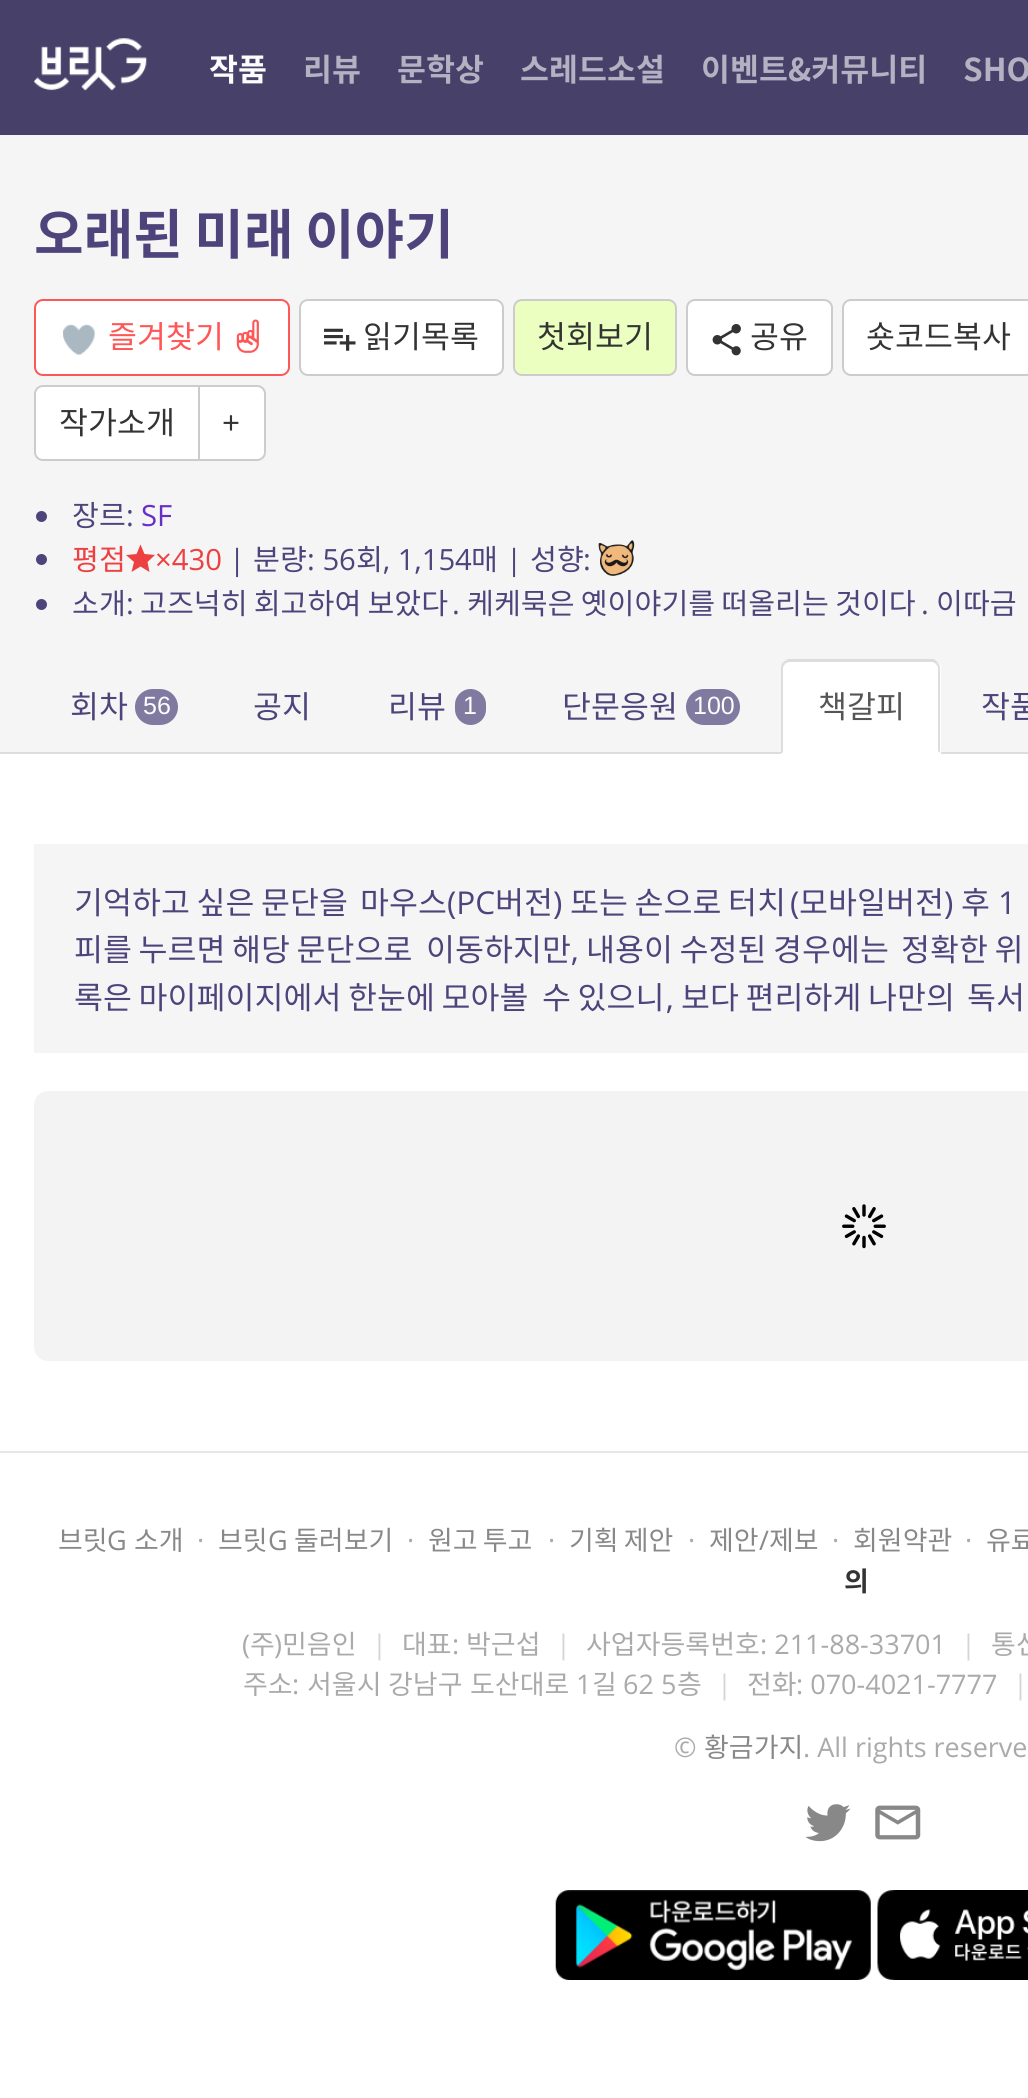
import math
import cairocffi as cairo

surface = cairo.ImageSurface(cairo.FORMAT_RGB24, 1028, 2098)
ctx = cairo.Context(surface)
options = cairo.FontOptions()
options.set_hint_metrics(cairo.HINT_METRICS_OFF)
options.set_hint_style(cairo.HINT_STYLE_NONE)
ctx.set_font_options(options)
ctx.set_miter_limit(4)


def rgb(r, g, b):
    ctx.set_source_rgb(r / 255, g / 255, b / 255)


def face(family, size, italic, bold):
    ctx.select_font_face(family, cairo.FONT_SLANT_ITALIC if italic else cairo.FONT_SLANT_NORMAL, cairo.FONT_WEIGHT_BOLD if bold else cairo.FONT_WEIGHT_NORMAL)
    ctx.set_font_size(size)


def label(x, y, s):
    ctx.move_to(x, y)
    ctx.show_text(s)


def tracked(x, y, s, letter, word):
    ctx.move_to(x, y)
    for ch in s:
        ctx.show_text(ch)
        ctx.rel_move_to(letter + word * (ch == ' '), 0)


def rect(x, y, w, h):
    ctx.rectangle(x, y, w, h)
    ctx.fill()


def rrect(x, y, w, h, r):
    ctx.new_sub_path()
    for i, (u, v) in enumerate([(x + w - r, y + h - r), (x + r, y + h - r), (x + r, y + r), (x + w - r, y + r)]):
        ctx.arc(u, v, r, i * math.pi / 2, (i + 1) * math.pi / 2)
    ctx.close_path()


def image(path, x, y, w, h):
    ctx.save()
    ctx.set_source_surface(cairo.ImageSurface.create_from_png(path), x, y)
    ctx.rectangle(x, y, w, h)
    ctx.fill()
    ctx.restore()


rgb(255, 255, 255)
ctx.paint()
rgb(71, 64, 105)
rect(0, 0, 1028, 135)
image('image0.png', 34, 38, 113, 53)
face('Noto Sans KR', 31.5, 0, 1)
rgb(252, 252, 252)
label(209, 81, '작품')
rgb(180, 177, 194)
label(303, 81, '리뷰')
label(397, 81, '문학상')
label(520, 81, '스레드소설')
label(701, 81, '이벤트&커뮤니티')
label(963, 81, 'SHO')
rgb(245, 245, 245)
rect(0, 135, 1028, 617)
rgb(221, 221, 221)
rect(0, 752, 1028, 2)
face('Noto Sans KR', 54, 0, 1)
rgb(78, 68, 123)
tracked(34, 254, '오래된 미래 이야기', 0, -1)
rgb(255, 255, 255)
rrect(35, 300, 254, 75, 8)
ctx.fill_preserve()
rgb(255, 86, 86)
ctx.stroke()
image('image1.png', 62, 324, 34, 32)
face('Noto Sans KR', 31.5, 0, 0)
label(108, 348, '즐겨찾기')
image('image2.png', 236, 319, 23, 34)
rgb(255, 255, 255)
rrect(300, 300, 203, 75, 8)
ctx.fill_preserve()
rgb(204, 204, 204)
ctx.stroke()
image('image3.png', 324, 328, 32, 23)
rgb(51, 51, 51)
label(363, 348, '읽기목록')
rgb(234, 255, 192)
rrect(514, 300, 162, 75, 8)
ctx.fill_preserve()
rgb(204, 204, 204)
ctx.stroke()
rgb(51, 51, 51)
label(537, 348, '첫회보기')
rgb(255, 255, 255)
rrect(687, 300, 145, 75, 8)
ctx.fill_preserve()
rgb(204, 204, 204)
ctx.stroke()
image('image4.png', 712, 324, 29, 32)
rgb(51, 51, 51)
label(750, 348, '공유')
rgb(255, 255, 255)
rrect(843, 300, 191, 75, 8)
ctx.fill_preserve()
rgb(204, 204, 204)
ctx.stroke()
rgb(51, 51, 51)
label(866, 348, '숏코드복사')
rgb(255, 255, 255)
ctx.new_path()
ctx.move_to(43, 386)
ctx.line_to(199, 386)
ctx.line_to(199, 460)
ctx.line_to(43, 460)
ctx.curve_to(38.5, 460, 35, 456.5, 35, 452)
ctx.line_to(35, 394)
ctx.curve_to(35, 389.5, 38.5, 386, 43, 386)
ctx.close_path()
ctx.fill_preserve()
rgb(204, 204, 204)
ctx.stroke()
rgb(51, 51, 51)
label(59, 434, '작가소개')
rgb(255, 255, 255)
ctx.new_path()
ctx.move_to(199, 386)
ctx.line_to(257, 386)
ctx.curve_to(261.5, 386, 265, 389.5, 265, 394)
ctx.line_to(265, 452)
ctx.curve_to(265, 456.5, 261.5, 460, 257, 460)
ctx.line_to(199, 460)
ctx.close_path()
ctx.fill_preserve()
rgb(204, 204, 204)
ctx.stroke()
face('Open Sans', 31.5, 0, 0)
rgb(51, 51, 51)
label(222, 434, '+')
rgb(78, 68, 123)
ctx.new_path()
ctx.arc(41.5, 516.5, 5.5, 0, 2 * math.pi)
ctx.fill()
face('Noto Sans KR', 29.25, 0, 0)
label(72, 526, '장르')
face('Open Sans', 29.25, 0, 0)
label(126, 526, ':')
rgb(103, 46, 200)
label(141, 526, 'SF')
rgb(78, 68, 123)
ctx.new_path()
ctx.arc(41.5, 559.5, 5.5, 0, 2 * math.pi)
ctx.fill()
face('Noto Sans KR', 29.25, 0, 0)
rgb(237, 65, 65)
label(72, 570, '평점')
ctx.new_path()
ctx.move_to(140.5, 566.5)
ctx.line_to(131.5, 572)
ctx.line_to(134, 562)
ctx.line_to(126, 555)
ctx.line_to(136.5, 554)
ctx.line_to(140.5, 544.5)
ctx.line_to(144.5, 554)
ctx.line_to(155, 555)
ctx.line_to(147.5, 562)
ctx.line_to(149.5, 572)
ctx.close_path()
ctx.fill()
face('Open Sans', 29.25, 0, 0)
label(155, 570, '×430')
rgb(78, 68, 123)
label(229, 570, '|')
face('Noto Sans KR', 29.25, 0, 0)
label(253, 570, '분량')
face('Open Sans', 29.25, 0, 0)
label(307, 570, ': 56')
face('Noto Sans KR', 29.25, 0, 0)
label(356, 570, '회')
face('Open Sans', 29.25, 0, 0)
label(383, 570, ', 1,154')
face('Noto Sans KR', 29.25, 0, 0)
label(471, 570, '매')
face('Open Sans', 29.25, 0, 0)
label(506, 570, '|')
face('Noto Sans KR', 29.25, 0, 0)
label(530, 570, '성향')
face('Open Sans', 29.25, 0, 0)
label(583, 570, ':')
image('image5.png', 598, 540, 37, 36)
ctx.arc(41.5, 604.5, 5.5, 0, 2 * math.pi)
ctx.fill()
face('Noto Sans KR', 29.25, 0, 0)
label(72, 614, '소개')
face('Open Sans', 29.25, 0, 0)
label(126, 614, ':')
face('Noto Sans KR', 29.25, 0, 0)
tracked(140, 614, '고즈넉히 회고하여 보았다', 0, -0.5)
face('Open Sans', 29.25, 0, 0)
label(452, 614, '.')
face('Noto Sans KR', 29.25, 0, 0)
tracked(467, 614, '케케묵은 옛이야기를 떠올리는 것이다', 0, -0.5)
face('Open Sans', 29.25, 0, 0)
label(921, 614, '.')
face('Noto Sans KR', 29.25, 0, 0)
tracked(936, 614, '이따금', 0, -0.5)
face('Noto Sans KR', 31.5, 0, 0)
label(70, 718, '회차')
rgb(128, 121, 160)
rrect(135, 689, 43, 36, 18)
ctx.fill()
face('Liberation Sans', 25, 0, 0)
rgb(252, 252, 252)
label(143, 714, '56')
face('Noto Sans KR', 31.5, 0, 0)
rgb(78, 68, 123)
label(253, 718, '공지')
label(388, 718, '리뷰')
rgb(128, 121, 160)
rrect(455, 689, 31, 36, 15.5)
ctx.fill()
face('Liberation Sans', 25, 0, 0)
rgb(252, 252, 252)
label(463, 714, '1')
face('Noto Sans KR', 31.5, 0, 0)
rgb(78, 68, 123)
label(562, 718, '단문응원')
rgb(128, 121, 160)
rrect(686, 689, 54, 36, 18)
ctx.fill()
face('Liberation Sans', 25, 0, 0)
rgb(252, 252, 252)
label(693, 714, '100')
rgb(255, 255, 255)
ctx.new_path()
ctx.move_to(790, 659)
ctx.line_to(932, 659)
ctx.curve_to(937, 659, 941, 663, 941, 668)
ctx.line_to(941, 754)
ctx.line_to(781, 754)
ctx.line_to(781, 668)
ctx.curve_to(781, 663, 785, 659, 790, 659)
ctx.close_path()
ctx.fill()
rgb(221, 221, 221)
ctx.new_path()
ctx.move_to(790, 662)
ctx.curve_to(788, 662, 786, 663, 785, 664)
ctx.line_to(783, 662)
ctx.curve_to(785, 661, 786, 660, 788, 659)
ctx.line_to(934, 659)
ctx.curve_to(935, 660, 937, 661, 938, 662)
ctx.line_to(936, 664)
ctx.curve_to(935, 663, 933, 662, 932, 662)
ctx.close_path()
ctx.fill()
ctx.new_path()
ctx.move_to(938, 662)
ctx.curve_to(939, 664, 940, 666, 940, 668)
ctx.line_to(940, 753)
ctx.line_to(938, 751)
ctx.line_to(938, 667)
ctx.line_to(936, 664)
ctx.close_path()
ctx.fill()
ctx.new_path()
ctx.move_to(781, 754)
ctx.line_to(781, 668)
ctx.curve_to(781, 666, 782, 663, 783, 662)
ctx.line_to(785, 664)
ctx.line_to(783, 667)
ctx.line_to(783, 752)
ctx.close_path()
ctx.fill()
face('Noto Sans KR', 31.5, 0, 0)
rgb(85, 85, 85)
label(818, 718, '책갈피')
rgb(78, 68, 123)
label(981, 718, '작품')
rgb(245, 245, 245)
rect(34, 844, 994, 209)
rgb(78, 68, 123)
tracked(74, 914, '기억하고 싶은 문단을', 0, -0.5)
tracked(360, 914, '마우스', 0, -0.5)
face('Open Sans', 31.5, 0, 0)
label(447, 914, '(PC')
face('Noto Sans KR', 31.5, 0, 0)
label(495, 914, '버전')
face('Open Sans', 31.5, 0, 0)
label(553, 914, ')')
face('Noto Sans KR', 31.5, 0, 0)
tracked(570, 914, '또는 손으로 터치', 0, -0.5)
face('Open Sans', 31.5, 0, 0)
label(790, 914, '(')
face('Noto Sans KR', 31.5, 0, 0)
label(799, 914, '모바일버전')
face('Open Sans', 31.5, 0, 0)
label(944, 914, ')')
face('Noto Sans KR', 31.5, 0, 0)
label(961, 914, '후')
face('Open Sans', 31.5, 0, 0)
label(998, 914, '1')
face('Noto Sans KR', 31.5, 0, 0)
tracked(74, 961, '피를 누르면 해당 문단으로', 0, -0.5)
tracked(426, 961, '이동하지만', 0, -0.5)
face('Open Sans', 31.5, 0, 0)
label(571, 961, ',')
face('Noto Sans KR', 31.5, 0, 0)
tracked(586, 961, '내용이 수정된 경우에는', 0, -0.5)
tracked(901, 961, '정확한 위', 0, -0.5)
tracked(74, 1009, '록은 마이페이지에서 한눈에 모아볼', 0, -0.5)
tracked(542, 1009, '수 있으니', 0, -0.5)
face('Open Sans', 31.5, 0, 0)
label(666, 1009, ',')
face('Noto Sans KR', 31.5, 0, 0)
tracked(681, 1009, '보다 편리하게 나만의', 0, -0.5)
tracked(967, 1009, '독서', 0, -0.5)
rgb(243, 243, 243)
rrect(34, 1091, 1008, 270, 14)
ctx.fill()
image('image6.png', 842, 1204, 44, 45)
rgb(230, 230, 230)
rect(0, 1451, 1028, 2)
face('Noto Sans KR', 27, 0, 0)
rgb(136, 136, 136)
label(58, 1550, '브릿')
face('Open Sans', 27, 0, 0)
label(107, 1550, 'G')
face('Noto Sans KR', 27, 0, 0)
label(134, 1550, '소개')
face('Open Sans', 27, 0, 0)
rgb(170, 170, 170)
label(197, 1550, '·')
face('Noto Sans KR', 27, 0, 0)
rgb(136, 136, 136)
label(218, 1550, '브릿')
face('Open Sans', 27, 0, 0)
label(268, 1550, 'G')
face('Noto Sans KR', 27, 0, 0)
label(294, 1550, '둘러보기')
face('Open Sans', 27, 0, 0)
rgb(170, 170, 170)
label(407, 1550, '·')
face('Noto Sans KR', 27, 0, 0)
rgb(136, 136, 136)
tracked(428, 1550, '원고 투고', 0, -1)
face('Open Sans', 27, 0, 0)
rgb(170, 170, 170)
label(548, 1550, '·')
face('Noto Sans KR', 27, 0, 0)
rgb(136, 136, 136)
tracked(569, 1550, '기획 제안', 0, -1)
face('Open Sans', 27, 0, 0)
rgb(170, 170, 170)
label(688, 1550, '·')
face('Noto Sans KR', 27, 0, 0)
rgb(136, 136, 136)
label(709, 1550, '제안')
face('Open Sans', 27, 0, 0)
label(759, 1550, '/')
face('Noto Sans KR', 27, 0, 0)
label(769, 1550, '제보')
face('Open Sans', 27, 0, 0)
rgb(170, 170, 170)
label(832, 1550, '·')
face('Noto Sans KR', 27, 0, 0)
rgb(136, 136, 136)
label(853, 1550, '회원약관')
face('Open Sans', 27, 0, 0)
rgb(170, 170, 170)
label(965, 1550, '·')
face('Noto Sans KR', 27, 0, 0)
rgb(136, 136, 136)
label(986, 1550, '유료')
face('Noto Sans KR', 27, 0, 1)
rgb(51, 51, 51)
label(844, 1591, '의')
face('Open Sans', 27, 0, 0)
rgb(170, 170, 170)
label(242, 1654, '(')
face('Noto Sans KR', 27, 0, 0)
label(250, 1654, '주')
face('Open Sans', 27, 0, 0)
label(274, 1654, ')')
face('Noto Sans KR', 27, 0, 0)
label(282, 1654, '민음인')
face('Open Sans', 27, 0, 0)
rgb(213, 213, 213)
label(372, 1654, '|')
face('Noto Sans KR', 27, 0, 0)
rgb(170, 170, 170)
label(402, 1654, '대표')
face('Open Sans', 27, 0, 0)
label(452, 1654, ':')
face('Noto Sans KR', 27, 0, 0)
label(466, 1654, '박근섭')
face('Open Sans', 27, 0, 0)
rgb(213, 213, 213)
label(556, 1654, '|')
face('Noto Sans KR', 27, 0, 0)
rgb(170, 170, 170)
label(586, 1654, '사업자등록번호')
face('Open Sans', 27, 0, 0)
label(760, 1654, ': 211-88-33701')
rgb(213, 213, 213)
label(961, 1654, '|')
face('Noto Sans KR', 27, 0, 0)
rgb(170, 170, 170)
label(991, 1654, '통신')
label(243, 1694, '주소')
face('Open Sans', 27, 0, 0)
label(292, 1694, ':')
face('Noto Sans KR', 27, 0, 0)
label(307, 1694, '서울시')
label(388, 1694, '강남구')
label(470, 1694, '도산대로')
face('Open Sans', 27, 0, 0)
label(576, 1694, '1')
face('Noto Sans KR', 27, 0, 0)
label(592, 1694, '길')
face('Open Sans', 27, 0, 0)
label(623, 1694, '62 5')
face('Noto Sans KR', 27, 0, 0)
label(677, 1694, '층')
face('Open Sans', 27, 0, 0)
rgb(213, 213, 213)
label(717, 1694, '|')
face('Noto Sans KR', 27, 0, 0)
rgb(170, 170, 170)
label(747, 1694, '전화')
face('Open Sans', 27, 0, 0)
label(796, 1694, ': 070-4021-7777')
rgb(213, 213, 213)
label(1013, 1694, '|')
rgb(170, 170, 170)
label(674, 1757, '©')
face('Noto Sans KR', 27, 0, 0)
rgb(136, 136, 136)
label(704, 1757, '황금가지')
face('Open Sans', 27, 0, 0)
rgb(170, 170, 170)
label(803, 1757, '. All rights reserve')
image('image7.png', 805, 1804, 46, 38)
image('image8.png', 875, 1805, 46, 35)
image('image9.png', 555, 1890, 316, 90)
image('image10.png', 877, 1890, 151, 90)
surface.write_to_png('render.png')
